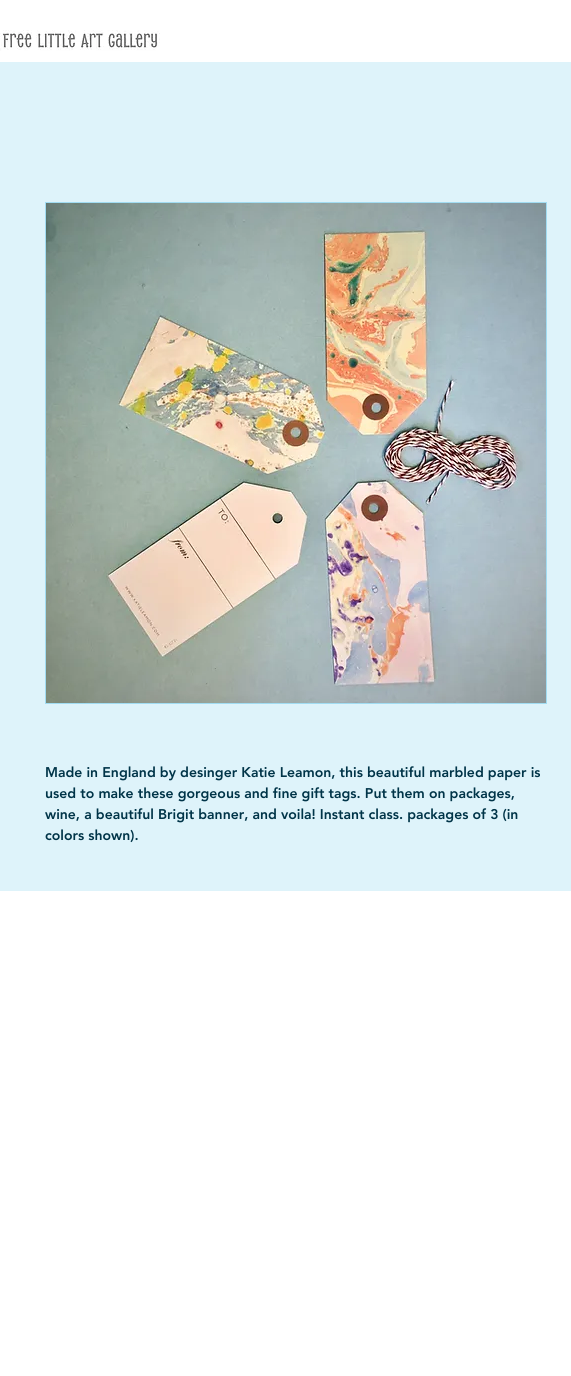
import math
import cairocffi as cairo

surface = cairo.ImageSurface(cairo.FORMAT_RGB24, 571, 1376)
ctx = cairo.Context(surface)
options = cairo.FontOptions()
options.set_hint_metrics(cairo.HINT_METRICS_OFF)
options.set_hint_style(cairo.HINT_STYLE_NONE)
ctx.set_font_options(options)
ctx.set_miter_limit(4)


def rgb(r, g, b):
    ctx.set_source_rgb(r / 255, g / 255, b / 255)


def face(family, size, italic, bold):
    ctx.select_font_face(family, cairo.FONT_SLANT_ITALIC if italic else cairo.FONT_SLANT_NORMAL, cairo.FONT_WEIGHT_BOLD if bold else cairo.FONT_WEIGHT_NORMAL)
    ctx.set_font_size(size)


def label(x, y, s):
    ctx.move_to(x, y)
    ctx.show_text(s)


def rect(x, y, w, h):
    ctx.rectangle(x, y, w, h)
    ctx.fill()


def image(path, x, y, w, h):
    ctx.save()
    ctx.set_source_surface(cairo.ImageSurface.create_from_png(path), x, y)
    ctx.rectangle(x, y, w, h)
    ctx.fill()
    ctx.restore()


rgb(255, 255, 255)
ctx.paint()
image('image0.png', 0, 30, 160, 21)
rgb(222, 243, 250)
rect(0, 62, 571, 829)
ctx.rectangle(45.5, 202.5, 501, 501)
rgb(161, 220, 242)
ctx.set_line_width(1)
ctx.stroke()
image('image1.png', 46, 203, 500, 500)
face('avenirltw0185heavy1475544 Black', 14, 0, 0)
rgb(0, 52, 72)
label(45, 777, 'Made in England by desinger Katie Leamon, this beautiful marbled paper is')
label(45, 798, 'used to make these gorgeous and fine gift tags. Put them on packages,')
label(45, 819, 'wine, a beautiful Brigit banner, and voila! Instant class. packages of 3 (in')
label(45, 840, 'colors shown).')
surface.write_to_png('render.png')
